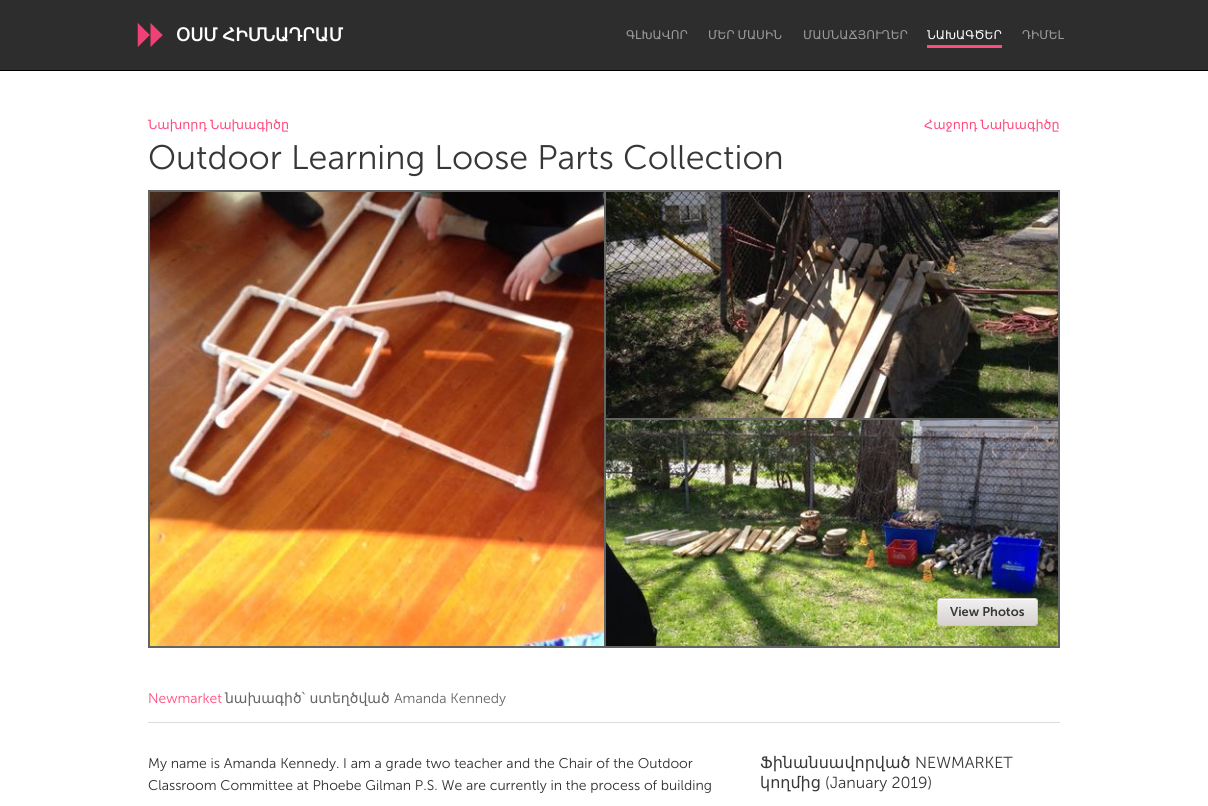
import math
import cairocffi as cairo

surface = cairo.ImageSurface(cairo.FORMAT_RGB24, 1208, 806)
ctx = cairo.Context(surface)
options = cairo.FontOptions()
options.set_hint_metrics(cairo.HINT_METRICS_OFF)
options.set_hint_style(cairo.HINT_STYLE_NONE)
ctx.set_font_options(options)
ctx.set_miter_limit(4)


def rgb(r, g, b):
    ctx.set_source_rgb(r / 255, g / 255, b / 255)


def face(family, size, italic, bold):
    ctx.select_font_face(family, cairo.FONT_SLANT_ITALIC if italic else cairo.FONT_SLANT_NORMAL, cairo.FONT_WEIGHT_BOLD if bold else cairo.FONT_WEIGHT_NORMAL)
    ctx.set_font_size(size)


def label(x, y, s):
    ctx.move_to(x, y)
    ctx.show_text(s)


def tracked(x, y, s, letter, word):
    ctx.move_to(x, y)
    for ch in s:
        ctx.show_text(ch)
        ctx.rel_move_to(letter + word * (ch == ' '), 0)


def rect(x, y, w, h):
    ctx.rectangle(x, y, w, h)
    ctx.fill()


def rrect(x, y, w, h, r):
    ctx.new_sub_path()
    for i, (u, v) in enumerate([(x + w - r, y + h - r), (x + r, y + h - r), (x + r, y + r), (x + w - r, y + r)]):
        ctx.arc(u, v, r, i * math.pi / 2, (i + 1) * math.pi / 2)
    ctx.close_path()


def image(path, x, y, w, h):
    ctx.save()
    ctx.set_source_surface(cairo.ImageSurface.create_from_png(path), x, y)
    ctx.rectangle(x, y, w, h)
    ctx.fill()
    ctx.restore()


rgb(255, 255, 255)
ctx.paint()
rgb(45, 45, 45)
rect(0, 0, 1208, 70)
rgb(0, 0, 0)
rect(0, 70, 1208, 1)
image('image0.png', 137, 23, 26, 24)
face('DejaVu Sans', 18, 0, 1)
rgb(255, 255, 255)
tracked(176, 41, 'ՕՍՄ ՀԻՄՆԱԴՐԱՄ', 0, -1)
face('DejaVu Sans', 12, 0, 0)
rgb(155, 155, 155)
label(626, 39, 'ԳԼԽԱՎՈՐ')
tracked(708, 39, 'ՄԵՐ ՄԱՍԻՆ', 0, -1)
label(803, 39, 'ՄԱՍՆԱՃՅՈՒՂԵՐ')
rgb(255, 75, 126)
rect(927, 45, 75, 3)
rgb(255, 255, 255)
label(927, 39, 'ՆԱԽԱԳԾԵՐ')
rgb(155, 155, 155)
label(1022, 39, 'ԴԻՄԵԼ')
face('DejaVu Sans', 12.75, 0, 0)
rgb(255, 75, 126)
tracked(148, 129, 'Նախորդ Նախագիծը', 0, -1)
tracked(924, 129, 'Հաջորդ Նախագիծը', 0, -1)
face('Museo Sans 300 Light', 34, 0, 0)
rgb(55, 55, 55)
label(148, 169, 'Outdoor Learning Loose Parts Collection')
rgb(100, 100, 100)
rect(148, 190, 912, 458)
image('image1.png', 150, 192, 454, 454)
image('image2.png', 606, 192, 452, 226)
image('image3.png', 606, 420, 452, 226)
gradient = cairo.LinearGradient(988, 599, 988, 625)
gradient.add_color_stop_rgba(0, 0.941, 0.941, 0.941, 1)
gradient.add_color_stop_rgba(1, 0.847, 0.816, 0.816, 1)
ctx.set_source(gradient)
rrect(938, 599, 99, 26, 2)
ctx.fill()
rgb(255, 255, 255)
ctx.new_path()
ctx.move_to(940, 600)
ctx.line_to(1035, 600)
ctx.curve_to(1036, 600, 1037, 601, 1037, 602)
ctx.curve_to(1037, 601, 1037, 599, 1035, 599)
ctx.line_to(956, 599)
ctx.curve_to(954, 599, 938, 595, 938, 602)
ctx.curve_to(938, 601, 939, 600, 940, 600)
ctx.close_path()
ctx.fill()
rrect(937.5, 598.5, 100, 27, 2.5)
rgb(209, 200, 200)
ctx.set_line_width(1)
ctx.stroke()
face('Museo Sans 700 SemiBold', 12.75, 0, 0)
rgb(55, 55, 55)
label(950, 616, 'View Photos')
rgb(220, 220, 220)
rect(148, 722, 912, 1)
face('Museo Sans 300 Light', 14, 0, 0)
rgb(255, 75, 126)
label(148, 703, 'Newmarket')
face('DejaVu Sans', 14, 0, 0)
rgb(100, 100, 100)
label(225, 703, 'նախագիծ՝ ստեղծված')
face('Museo Sans 300 Light', 14, 0, 0)
label(394, 703, 'Amanda Kennedy')
rgb(46, 46, 46)
label(148, 768, 'My name is Amanda Kennedy. I am a grade two teacher and the Chair of the Outdoor')
label(148, 790, 'Classroom Committee at Phoebe Gilman P.S. We are currently in the process of building')
face('DejaVu Sans', 16, 0, 0)
rgb(55, 55, 55)
label(760, 768, 'Ֆինանսավորված')
face('Museo Sans 300 Light', 16, 0, 0)
label(915, 768, 'NEWMARKET')
face('DejaVu Sans', 16, 0, 0)
label(760, 788, 'կողմից')
face('Museo Sans 300 Light', 16, 0, 0)
label(825, 788, '(January 2019)')
surface.write_to_png('render.png')
